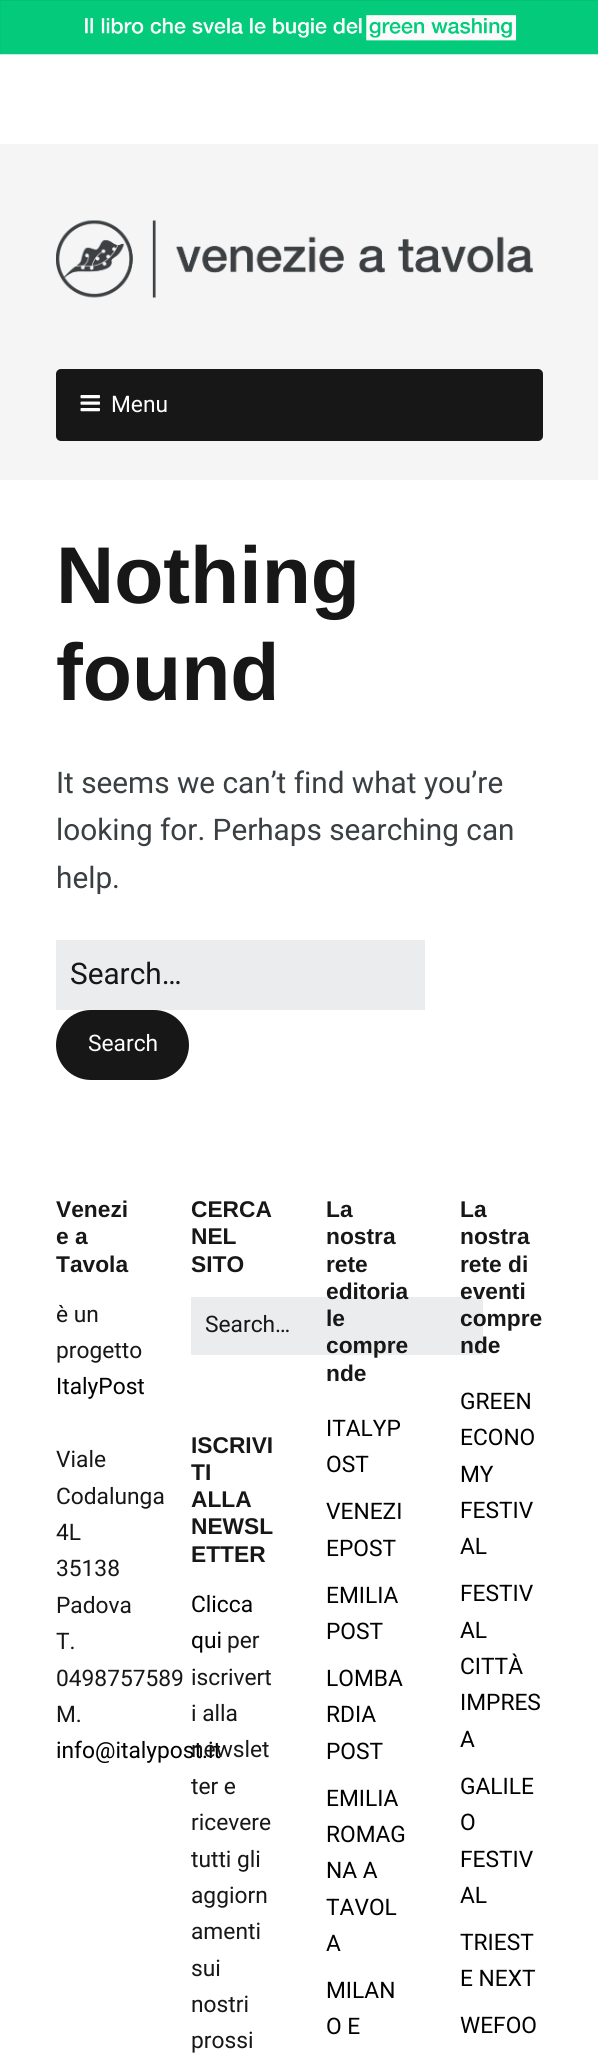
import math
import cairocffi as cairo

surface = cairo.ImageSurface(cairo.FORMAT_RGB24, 598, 2063)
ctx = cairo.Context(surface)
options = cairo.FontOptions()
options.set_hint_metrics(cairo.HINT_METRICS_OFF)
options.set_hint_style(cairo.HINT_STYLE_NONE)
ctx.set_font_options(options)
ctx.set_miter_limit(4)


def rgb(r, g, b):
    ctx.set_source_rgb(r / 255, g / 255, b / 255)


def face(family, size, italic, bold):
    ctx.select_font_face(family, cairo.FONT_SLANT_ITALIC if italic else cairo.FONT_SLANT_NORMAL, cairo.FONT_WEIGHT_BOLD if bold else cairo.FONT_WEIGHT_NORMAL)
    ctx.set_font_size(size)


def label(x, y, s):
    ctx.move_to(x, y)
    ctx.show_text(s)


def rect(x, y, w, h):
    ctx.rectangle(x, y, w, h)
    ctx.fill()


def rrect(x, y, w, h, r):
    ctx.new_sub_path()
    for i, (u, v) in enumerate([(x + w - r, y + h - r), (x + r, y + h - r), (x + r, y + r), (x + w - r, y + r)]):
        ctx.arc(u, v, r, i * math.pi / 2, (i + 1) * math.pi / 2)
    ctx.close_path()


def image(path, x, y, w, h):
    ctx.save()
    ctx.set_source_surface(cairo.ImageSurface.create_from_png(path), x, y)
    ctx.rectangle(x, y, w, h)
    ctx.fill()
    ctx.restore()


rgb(255, 255, 255)
ctx.paint()
image('image0.png', 0, 0, 598, 55)
rgb(245, 245, 245)
rect(0, 144, 598, 336)
image('image1.png', 56, 220, 477, 78)
rgb(23, 23, 23)
rrect(56, 369, 487, 72, 5)
ctx.fill()
image('image2.png', 80, 395, 20, 17)
face('Roboto', 22.75, 0, 0)
rgb(255, 255, 255)
label(111, 412, 'Menu')
face('Liberation Sans', 80.5, 0, 1)
rgb(23, 23, 23)
label(56, 603, 'Nothing')
label(56, 700, 'found')
face('Roboto', 29.75, 0, 0)
rgb(58, 63, 66)
label(56, 793, 'It seems we can’t find what you’re')
label(56, 840, 'looking for. Perhaps searching can')
label(56, 888, 'help.')
rgb(234, 236, 238)
rect(56, 940, 369, 70)
rgb(23, 23, 23)
label(70, 984, 'Search…')
rrect(56, 1010, 133, 70, 35)
ctx.fill()
face('Roboto', 22.75, 0, 0)
rgb(255, 255, 255)
label(88, 1051, 'Search')
face('Liberation Sans', 22.75, 0, 1)
rgb(23, 23, 23)
label(56, 1217, 'Venezi')
label(56, 1244, 'e a')
label(56, 1272, 'Tavola')
face('Roboto', 22.75, 0, 0)
label(56, 1322, 'è un')
label(56, 1358, 'progetto')
rgb(0, 0, 0)
label(56, 1394, 'ItalyPost')
rgb(23, 23, 23)
label(56, 1467, 'Viale')
label(56, 1504, 'Codalunga')
label(56, 1540, '4L')
label(56, 1576, '35138')
label(56, 1613, 'Padova')
label(56, 1649, 'T.')
label(56, 1686, '0498757589')
label(56, 1722, 'M.')
rgb(0, 0, 0)
label(56, 1758, 'info@italypost.it')
face('Liberation Sans', 22.75, 0, 1)
rgb(23, 23, 23)
label(191, 1217, 'CERCA')
label(191, 1244, 'NEL')
label(191, 1272, 'SITO')
rgb(234, 236, 238)
rect(191, 1297, 292, 58)
face('Roboto', 22.75, 0, 0)
rgb(23, 23, 23)
label(205, 1332, 'Search…')
face('Liberation Sans', 22.75, 0, 1)
label(191, 1453, 'ISCRIVI')
label(191, 1480, 'TI')
label(191, 1507, 'ALLA')
label(191, 1534, 'NEWSL')
label(191, 1562, 'ETTER')
face('Roboto', 22.75, 0, 0)
rgb(0, 0, 0)
label(191, 1612, 'Clicca')
label(191, 1648, 'qui')
rgb(23, 23, 23)
label(227, 1648, 'per')
label(191, 1685, 'iscrivert')
label(191, 1721, 'i alla')
label(191, 1757, 'newslet')
label(191, 1794, 'ter e')
label(191, 1830, 'ricevere')
label(191, 1867, 'tutti gli')
label(191, 1903, 'aggiorn')
label(191, 1939, 'amenti')
label(191, 1976, 'sui')
label(191, 2012, 'nostri')
label(191, 2048, 'prossi')
face('Liberation Sans', 22.75, 0, 1)
label(326, 1217, 'La')
label(326, 1244, 'nostra')
label(326, 1272, 'rete')
label(326, 1299, 'editoria')
label(326, 1326, 'le')
label(326, 1353, 'compre')
label(326, 1381, 'nde')
face('Roboto', 22.75, 0, 0)
rgb(0, 0, 0)
label(326, 1436, 'ITALYP')
label(326, 1472, 'OST')
label(326, 1519, 'VENEZI')
label(326, 1556, 'EPOST')
label(326, 1603, 'EMILIA')
label(326, 1639, 'POST')
label(326, 1686, 'LOMBA')
label(326, 1722, 'RDIA')
label(326, 1759, 'POST')
label(326, 1806, 'EMILIA')
label(326, 1842, 'ROMAG')
label(326, 1878, 'NA A')
label(326, 1915, 'TAVOL')
label(326, 1951, 'A')
label(326, 1998, 'MILAN')
label(326, 2034, 'O E')
face('Liberation Sans', 22.75, 0, 1)
rgb(23, 23, 23)
label(460, 1217, 'La')
label(460, 1244, 'nostra')
label(460, 1272, 'rete di')
label(460, 1299, 'eventi')
label(460, 1326, 'compre')
label(460, 1353, 'nde')
face('Roboto', 22.75, 0, 0)
rgb(0, 0, 0)
label(460, 1409, 'GREEN')
label(460, 1445, 'ECONO')
label(460, 1482, 'MY')
label(460, 1518, 'FESTIV')
label(460, 1554, 'AL')
label(460, 1601, 'FESTIV')
label(460, 1638, 'AL')
label(460, 1674, 'CITTÀ')
label(460, 1710, 'IMPRES')
label(460, 1747, 'A')
label(460, 1794, 'GALILE')
label(460, 1830, 'O')
label(460, 1867, 'FESTIV')
label(460, 1903, 'AL')
label(460, 1950, 'TRIEST')
label(460, 1986, 'E NEXT')
label(460, 2033, 'WEFOO')
surface.write_to_png('render.png')
